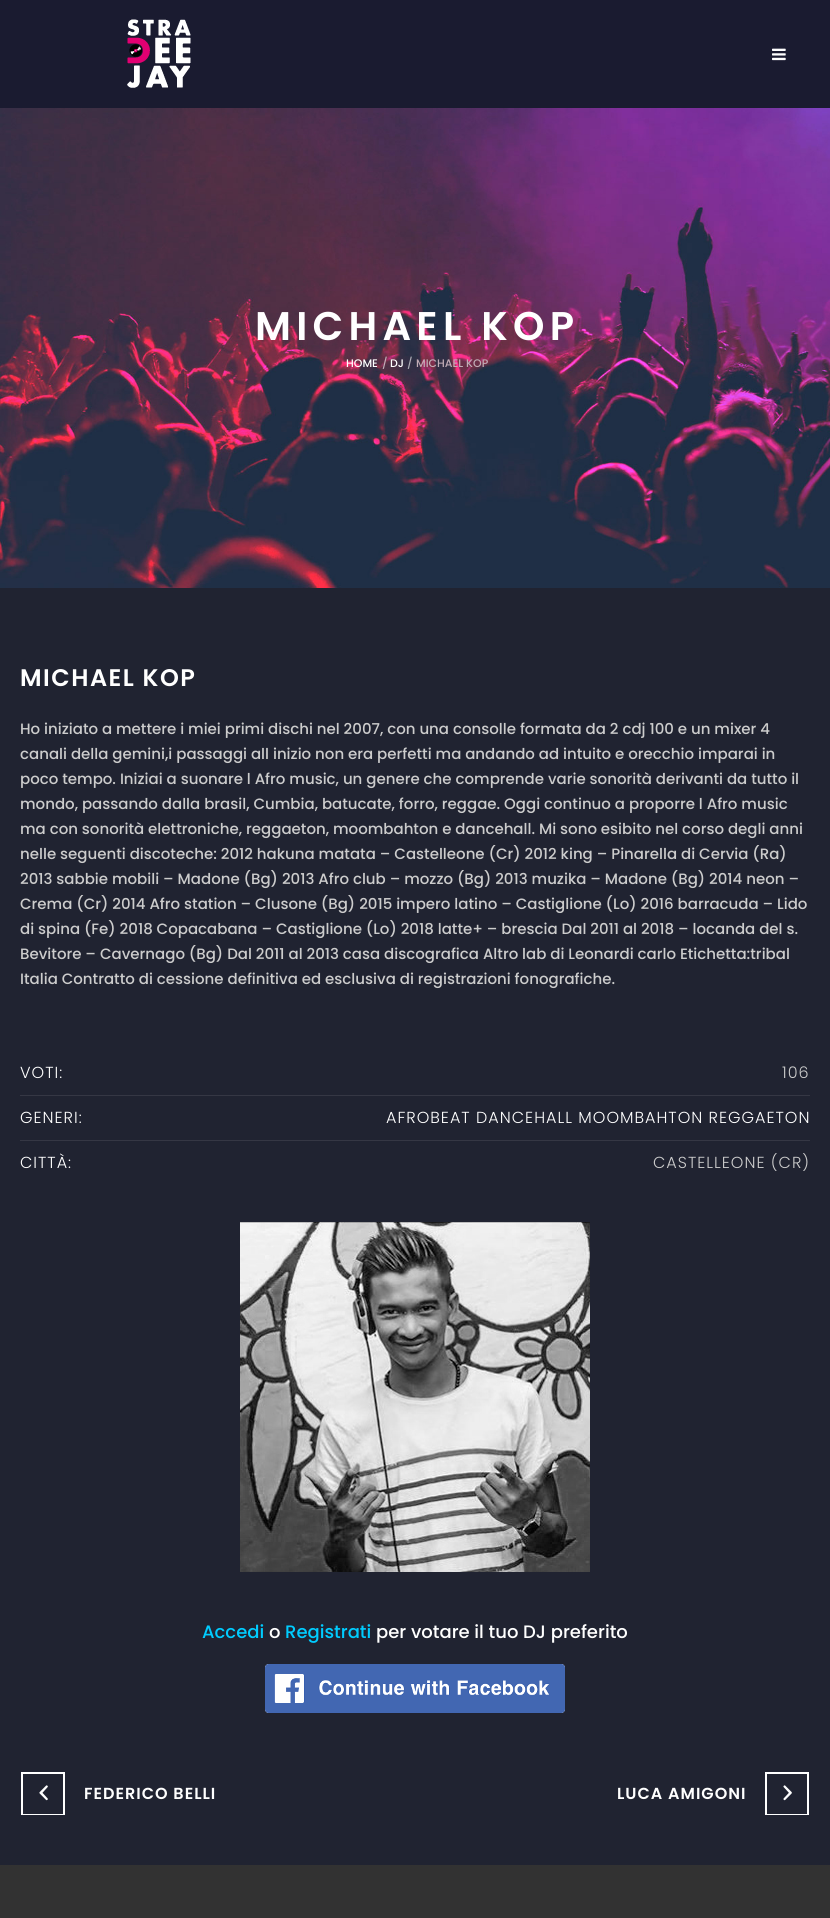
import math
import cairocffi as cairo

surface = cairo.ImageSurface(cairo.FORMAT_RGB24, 830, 1918)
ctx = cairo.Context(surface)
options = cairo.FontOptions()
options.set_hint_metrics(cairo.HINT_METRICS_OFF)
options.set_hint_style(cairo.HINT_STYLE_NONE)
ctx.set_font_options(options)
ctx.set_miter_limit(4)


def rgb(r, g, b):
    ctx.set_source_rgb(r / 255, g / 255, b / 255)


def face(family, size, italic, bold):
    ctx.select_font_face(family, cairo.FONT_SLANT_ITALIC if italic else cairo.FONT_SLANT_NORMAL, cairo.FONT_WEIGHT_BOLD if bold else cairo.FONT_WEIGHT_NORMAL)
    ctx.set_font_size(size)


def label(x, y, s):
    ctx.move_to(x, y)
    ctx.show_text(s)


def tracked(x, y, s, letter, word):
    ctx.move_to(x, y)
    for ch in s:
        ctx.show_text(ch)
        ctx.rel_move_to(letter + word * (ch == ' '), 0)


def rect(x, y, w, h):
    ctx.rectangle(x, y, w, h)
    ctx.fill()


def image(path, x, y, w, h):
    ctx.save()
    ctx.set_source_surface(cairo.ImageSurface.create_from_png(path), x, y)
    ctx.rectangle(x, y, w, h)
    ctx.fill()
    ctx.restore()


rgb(32, 35, 49)
ctx.paint()
rgb(26, 27, 48)
rect(0, 0, 830, 108)
image('image0.png', 127, 19, 64, 69)
image('image1.png', 772, 48, 14, 13)
image('image2.png', 0, 108, 830, 480)
face('Poppins SemiBold', 40, 0, 0)
rgb(255, 255, 255)
tracked(255, 340, 'MICHAEL KOP', 5.25, 0)
face('Poppins Medium', 11, 0, 0)
label(346, 367, 'HOME')
rgb(193, 172, 182)
label(382, 367, '/')
rgb(255, 255, 255)
label(390, 367, 'DJ')
rgb(173, 172, 181)
label(407, 367, '/')
rgb(193, 172, 182)
label(416, 367, 'MICHAEL KOP')
face('Poppins SemiBold', 24, 0, 0)
rgb(255, 255, 255)
tracked(20, 686, 'MICHAEL KOP', 1.5, 0)
face('Poppins Medium', 15, 0, 0)
rgb(204, 204, 204)
label(20, 734, 'Ho iniziato a mettere i miei primi dischi nel 2007, con una consolle formata da 2 cdj 100 e un mixer 4')
label(20, 759, 'canali della gemini,i passaggi all inizio non era perfetti ma andando ad intuito e orecchio imparai in')
label(20, 784, 'poco tempo. Iniziai a suonare l Afro music, un genere che comprende varie sonorità derivanti da tutto il')
label(20, 809, 'mondo, passando dalla brasil, Cumbia, batucate, forro, reggae. Oggi continuo a proporre l Afro music')
label(20, 834, 'ma con sonorità elettroniche, reggaeton, moombahton e dancehall. Mi sono esibito nel corso degli anni')
label(20, 859, 'nelle seguenti discoteche: 2012 hakuna matata – Castelleone (Cr) 2012 king – Pinarella di Cervia (Ra)')
label(20, 884, '2013 sabbie mobili – Madone (Bg) 2013 Afro club – mozzo (Bg) 2013 muzika – Madone (Bg) 2014 neon –')
label(20, 909, 'Crema (Cr) 2014 Afro station – Clusone (Bg) 2015 impero latino – Castiglione (Lo) 2016 barracuda – Lido')
label(20, 934, 'di spina (Fe) 2018 Copacabana – Castiglione (Lo) 2018 latte+ – brescia Dal 2011 al 2018 – locanda del s.')
label(20, 959, 'Bevitore – Cavernago (Bg) Dal 2011 al 2013 casa discografica Altro lab di Leonardi carlo Etichetta:tribal')
label(20, 984, 'Italia Contratto di cessione definitiva ed esclusiva di registrazioni fonografiche.')
face('Poppins Light', 16, 0, 0)
rgb(255, 255, 255)
tracked(20, 1078, 'VOTI:', 1, 0)
rgb(204, 204, 204)
tracked(782, 1078, '106', 1, 0)
rgb(53, 55, 68)
rect(20, 1095, 790, 1)
rgb(255, 255, 255)
tracked(20, 1123, 'GENERI:', 1, 0)
tracked(386, 1123, 'AFROBEAT DANCEHALL MOOMBAHTON REGGAETON', 1, 0)
rgb(53, 55, 68)
rect(20, 1140, 790, 1)
rgb(255, 255, 255)
tracked(20, 1168, 'CITTÀ:', 1, 0)
rgb(204, 204, 204)
tracked(653, 1168, 'CASTELLEONE (CR)', 1, 0)
image('image3.png', 240, 1222, 350, 350)
face('Poppins Medium', 18, 0, 0)
rgb(0, 204, 255)
label(202, 1638, 'Accedi')
rgb(255, 255, 255)
label(269, 1638, 'o')
rgb(0, 204, 255)
label(285, 1638, 'Registrati')
rgb(255, 255, 255)
label(376, 1638, 'per votare il tuo DJ preferito')
image('image4.png', 265, 1664, 300, 49)
ctx.save()
ctx.rectangle(20, 1733, 790, 82)
ctx.clip()
ctx.rectangle(22, 1773, 42, 42)
ctx.stroke()
ctx.restore()
image('image5.png', 39, 1785, 9, 16)
face('Poppins SemiBold', 16, 0, 0)
tracked(84, 1799, 'FEDERICO BELLI', 1, 0)
tracked(617, 1799, 'LUCA AMIGONI', 1, 0)
ctx.save()
ctx.rectangle(20, 1733, 790, 82)
ctx.clip()
ctx.rectangle(766, 1773, 42, 42)
ctx.stroke()
ctx.restore()
image('image6.png', 783, 1785, 9, 16)
rgb(50, 50, 50)
rect(0, 1865, 830, 53)
surface.write_to_png('render.png')
